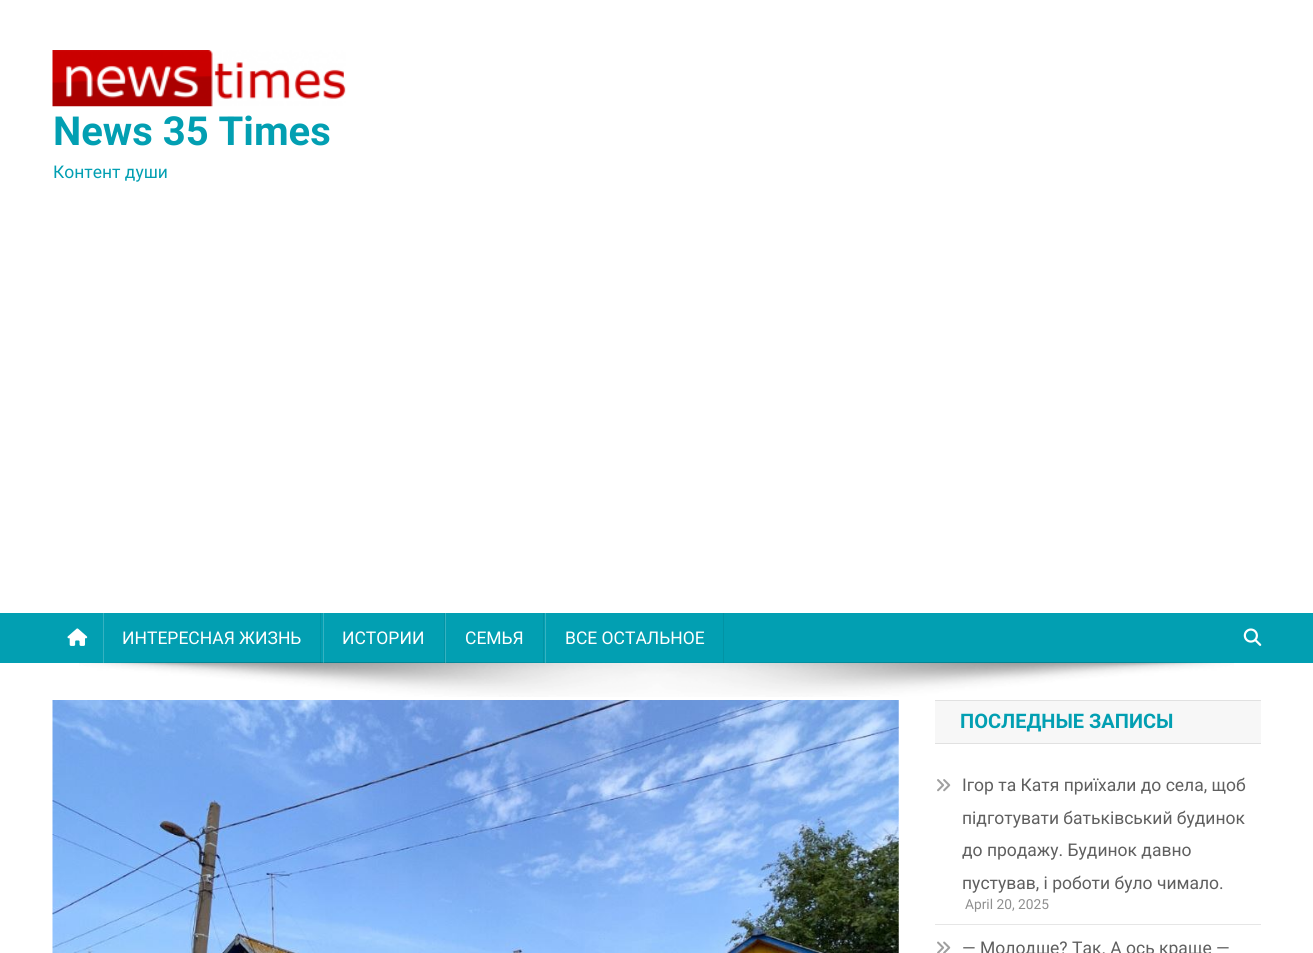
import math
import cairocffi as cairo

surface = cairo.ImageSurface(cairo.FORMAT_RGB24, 1313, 953)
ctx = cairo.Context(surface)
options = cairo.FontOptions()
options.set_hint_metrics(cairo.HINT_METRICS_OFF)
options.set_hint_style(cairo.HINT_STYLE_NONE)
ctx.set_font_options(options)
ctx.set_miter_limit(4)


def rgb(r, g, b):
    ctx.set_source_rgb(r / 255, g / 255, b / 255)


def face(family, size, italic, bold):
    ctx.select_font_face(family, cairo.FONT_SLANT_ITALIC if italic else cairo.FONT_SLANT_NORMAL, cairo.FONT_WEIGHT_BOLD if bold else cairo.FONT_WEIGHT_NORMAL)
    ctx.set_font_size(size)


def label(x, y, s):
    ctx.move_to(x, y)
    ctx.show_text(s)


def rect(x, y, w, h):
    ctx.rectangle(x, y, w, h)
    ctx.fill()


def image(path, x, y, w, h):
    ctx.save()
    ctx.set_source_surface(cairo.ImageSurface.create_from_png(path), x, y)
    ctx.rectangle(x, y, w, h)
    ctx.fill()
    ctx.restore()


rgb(255, 255, 255)
ctx.paint()
image('image0.png', 52, 50, 294, 57)
face('Roboto', 40, 0, 1)
rgb(2, 159, 178)
label(53, 145, 'News 35 Times')
face('Roboto', 17.5, 0, 0)
label(53, 178, 'Контент души')
rect(0, 613, 1313, 50)
image('image1.png', 67, 628, 21, 18)
image('image3.png', 79, 662, 1155, 35)
ctx.set_source_rgba(0, 0, 0, 0.08)
rect(320, 613, 1, 50)
ctx.set_source_rgba(1, 1, 1, 0.2)
rect(103, 613, 1, 50)
rgb(255, 255, 255)
label(122, 644, 'ИНТЕРЕСНАЯ ЖИЗНЬ')
ctx.set_source_rgba(0, 0, 0, 0.08)
rect(444, 613, 1, 50)
ctx.set_source_rgba(1, 1, 1, 0.2)
rect(323, 613, 1, 50)
rgb(255, 255, 255)
label(342, 644, 'ИСТОРИИ')
ctx.set_source_rgba(0, 0, 0, 0.08)
rect(543, 613, 1, 50)
ctx.set_source_rgba(1, 1, 1, 0.2)
rect(445, 613, 1, 50)
rgb(255, 255, 255)
label(465, 644, 'СЕМЬЯ')
ctx.set_source_rgba(0, 0, 0, 0.08)
rect(723, 613, 1, 50)
ctx.set_source_rgba(1, 1, 1, 0.2)
rect(545, 613, 1, 50)
rgb(255, 255, 255)
label(565, 644, 'ВСЕ ОСТАЛЬНОЕ')
image('image2.png', 1243, 628, 19, 18)
image('image4.png', 52, 700, 847, 253)
rgb(247, 247, 247)
rect(935, 701, 326, 42)
rgb(225, 225, 225)
rect(935, 700, 326, 1)
rect(935, 743, 326, 1)
face('Roboto', 20, 0, 1)
rgb(2, 159, 178)
label(960, 728, 'ПОСЛЕДНЫЕ ЗАПИСЫ')
rgb(230, 230, 230)
rect(935, 924, 326, 1)
image('image5.png', 937, 779, 14, 13)
face('Roboto', 17.5, 0, 0)
rgb(95, 95, 95)
label(962, 791, 'Ігор та Катя приїхали до села, щоб')
label(962, 824, 'підготувати батьківський будинок')
label(962, 856, 'до продажу. Будинок давно')
label(962, 889, 'пустував, і роботи було чимало.')
face('Roboto', 13.75, 0, 0)
rgb(143, 143, 143)
label(965, 909, 'April 20, 2025')
image('image6.png', 937, 941, 14, 12)
face('Roboto', 17.5, 0, 0)
rgb(95, 95, 95)
label(962, 954, '— Молодше? Так. А ось краще —')
surface.write_to_png('render.png')
